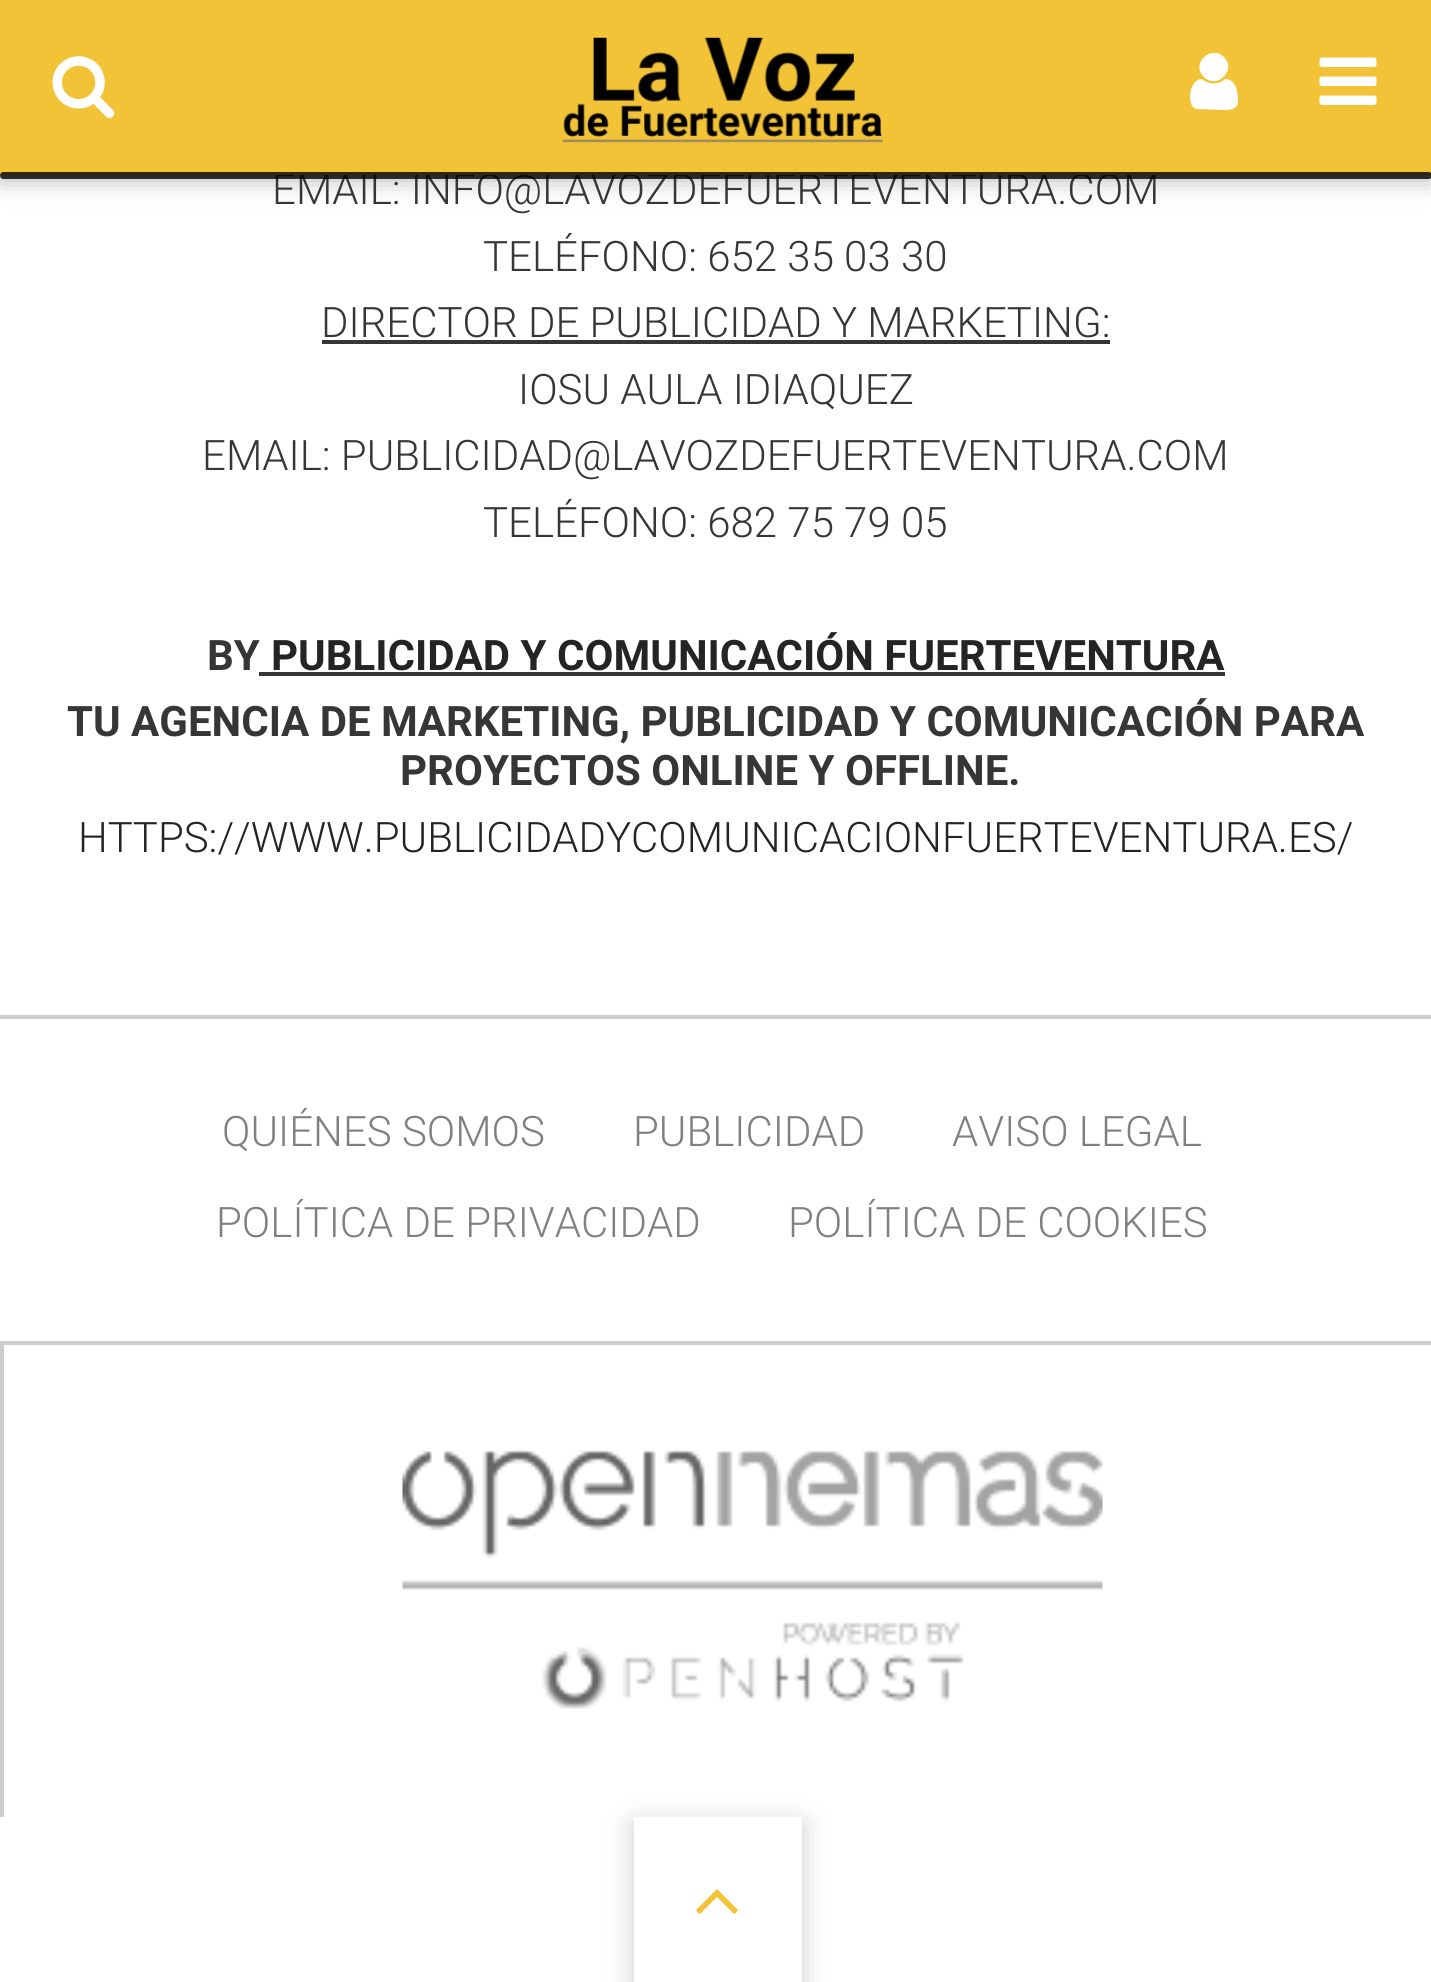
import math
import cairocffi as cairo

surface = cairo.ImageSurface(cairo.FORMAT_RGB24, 1431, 1982)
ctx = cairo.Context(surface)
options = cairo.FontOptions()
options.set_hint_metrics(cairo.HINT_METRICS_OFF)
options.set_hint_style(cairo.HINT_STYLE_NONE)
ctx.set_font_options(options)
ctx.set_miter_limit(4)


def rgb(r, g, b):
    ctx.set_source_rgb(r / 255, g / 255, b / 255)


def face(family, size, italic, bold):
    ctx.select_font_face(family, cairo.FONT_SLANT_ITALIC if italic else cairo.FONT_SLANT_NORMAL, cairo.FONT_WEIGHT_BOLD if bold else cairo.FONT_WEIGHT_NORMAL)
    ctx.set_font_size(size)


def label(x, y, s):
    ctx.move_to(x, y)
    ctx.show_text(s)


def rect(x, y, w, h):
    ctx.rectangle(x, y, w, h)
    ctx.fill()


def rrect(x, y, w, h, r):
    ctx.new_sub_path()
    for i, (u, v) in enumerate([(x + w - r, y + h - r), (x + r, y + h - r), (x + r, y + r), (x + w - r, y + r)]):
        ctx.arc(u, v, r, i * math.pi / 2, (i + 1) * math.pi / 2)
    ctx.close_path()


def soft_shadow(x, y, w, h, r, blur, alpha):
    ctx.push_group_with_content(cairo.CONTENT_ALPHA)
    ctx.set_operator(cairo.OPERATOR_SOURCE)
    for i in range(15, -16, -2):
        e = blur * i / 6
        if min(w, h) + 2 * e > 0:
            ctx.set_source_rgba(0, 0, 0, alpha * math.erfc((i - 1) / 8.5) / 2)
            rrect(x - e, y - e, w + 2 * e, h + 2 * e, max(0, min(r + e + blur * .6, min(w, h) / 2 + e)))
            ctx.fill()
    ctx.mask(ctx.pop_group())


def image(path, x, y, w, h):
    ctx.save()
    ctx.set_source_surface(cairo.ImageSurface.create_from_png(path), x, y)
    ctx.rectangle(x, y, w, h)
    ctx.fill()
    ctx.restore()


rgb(255, 255, 255)
ctx.paint()
rgb(0, 0, 0)
soft_shadow(0, 0, 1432, 175, 0, 14, 0.4)
face('Roboto Light', 42, 0, 0)
rgb(54, 54, 54)
label(272, 204, 'EMAIL: INFO@LAVOZDEFUERTEVENTURA.COM')
rgb(242, 194, 55)
rect(0, 0, 1431, 175)
image('image0.png', 562, 37, 321, 106)
rgb(255, 255, 255)
ctx.new_path()
ctx.move_to(1238, 100)
ctx.curve_to(1238, 109, 1232, 110, 1224, 110)
ctx.line_to(1196, 109)
ctx.curve_to(1186, 106, 1189, 79, 1202, 79)
ctx.curve_to(1209, 85, 1219, 85, 1225, 79)
ctx.curve_to(1236, 79, 1238, 92, 1238, 100)
ctx.close_path()
ctx.move_to(1224, 57)
ctx.curve_to(1237, 70, 1217, 90, 1204, 77)
ctx.curve_to(1190, 64, 1211, 44, 1224, 57)
ctx.close_path()
ctx.fill()
image('image1.png', 52, 56, 63, 62)
image('image2.png', 1319, 57, 58, 48)
ctx.set_source_rgba(0, 0, 0, 0.8)
rrect(0, 172, 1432, 7, 3.5)
ctx.fill()
rgb(206, 205, 205)
rect(0, 1015, 1431, 4)
rgb(54, 54, 54)
label(483, 271, 'TELÉFONO: 652 35 03 30')
label(321, 337, 'DIRECTOR DE PUBLICIDAD Y MARKETING:')
rect(322, 340, 788, 4)
label(518, 404, 'IOSU AULA IDIAQUEZ')
label(202, 470, 'EMAIL: PUBLICIDAD@LAVOZDEFUERTEVENTURA.COM')
label(483, 537, 'TELÉFONO: 682 75 79 05')
face('Roboto', 42, 0, 1)
label(207, 670, 'BY')
rect(259, 672, 966, 4)
rgb(36, 36, 36)
label(271, 670, 'PUBLICIDAD Y COMUNICACIÓN FUERTEVENTURA')
rgb(54, 54, 54)
label(67, 736, 'TU AGENCIA DE MARKETING, PUBLICIDAD Y COMUNICACIÓN PARA')
label(400, 785, 'PROYECTOS ONLINE Y OFFLINE.')
face('Roboto Light', 42, 0, 0)
rgb(36, 36, 36)
label(78, 852, 'HTTPS://WWW.PUBLICIDADYCOMUNICACIONFUERTEVENTURA.ES/')
rgb(206, 205, 205)
rect(0, 1341, 1431, 4)
rgb(128, 128, 128)
label(222, 1146, 'QUIÉNES SOMOS')
label(633, 1146, 'PUBLICIDAD')
label(952, 1146, 'AVISO LEGAL')
label(216, 1237, 'POLÍTICA DE PRIVACIDAD')
label(788, 1237, 'POLÍTICA DE COOKIES')
rgb(206, 205, 205)
rect(0, 1344, 4, 473)
image('image3.png', 402, 1449, 701, 260)
rgb(0, 0, 0)
soft_shadow(634, 1824, 168, 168, 0, 14, 0.2)
rgb(255, 255, 255)
rect(634, 1817, 168, 165)
image('image4.png', 696, 1889, 42, 25)
surface.write_to_png('render.png')
